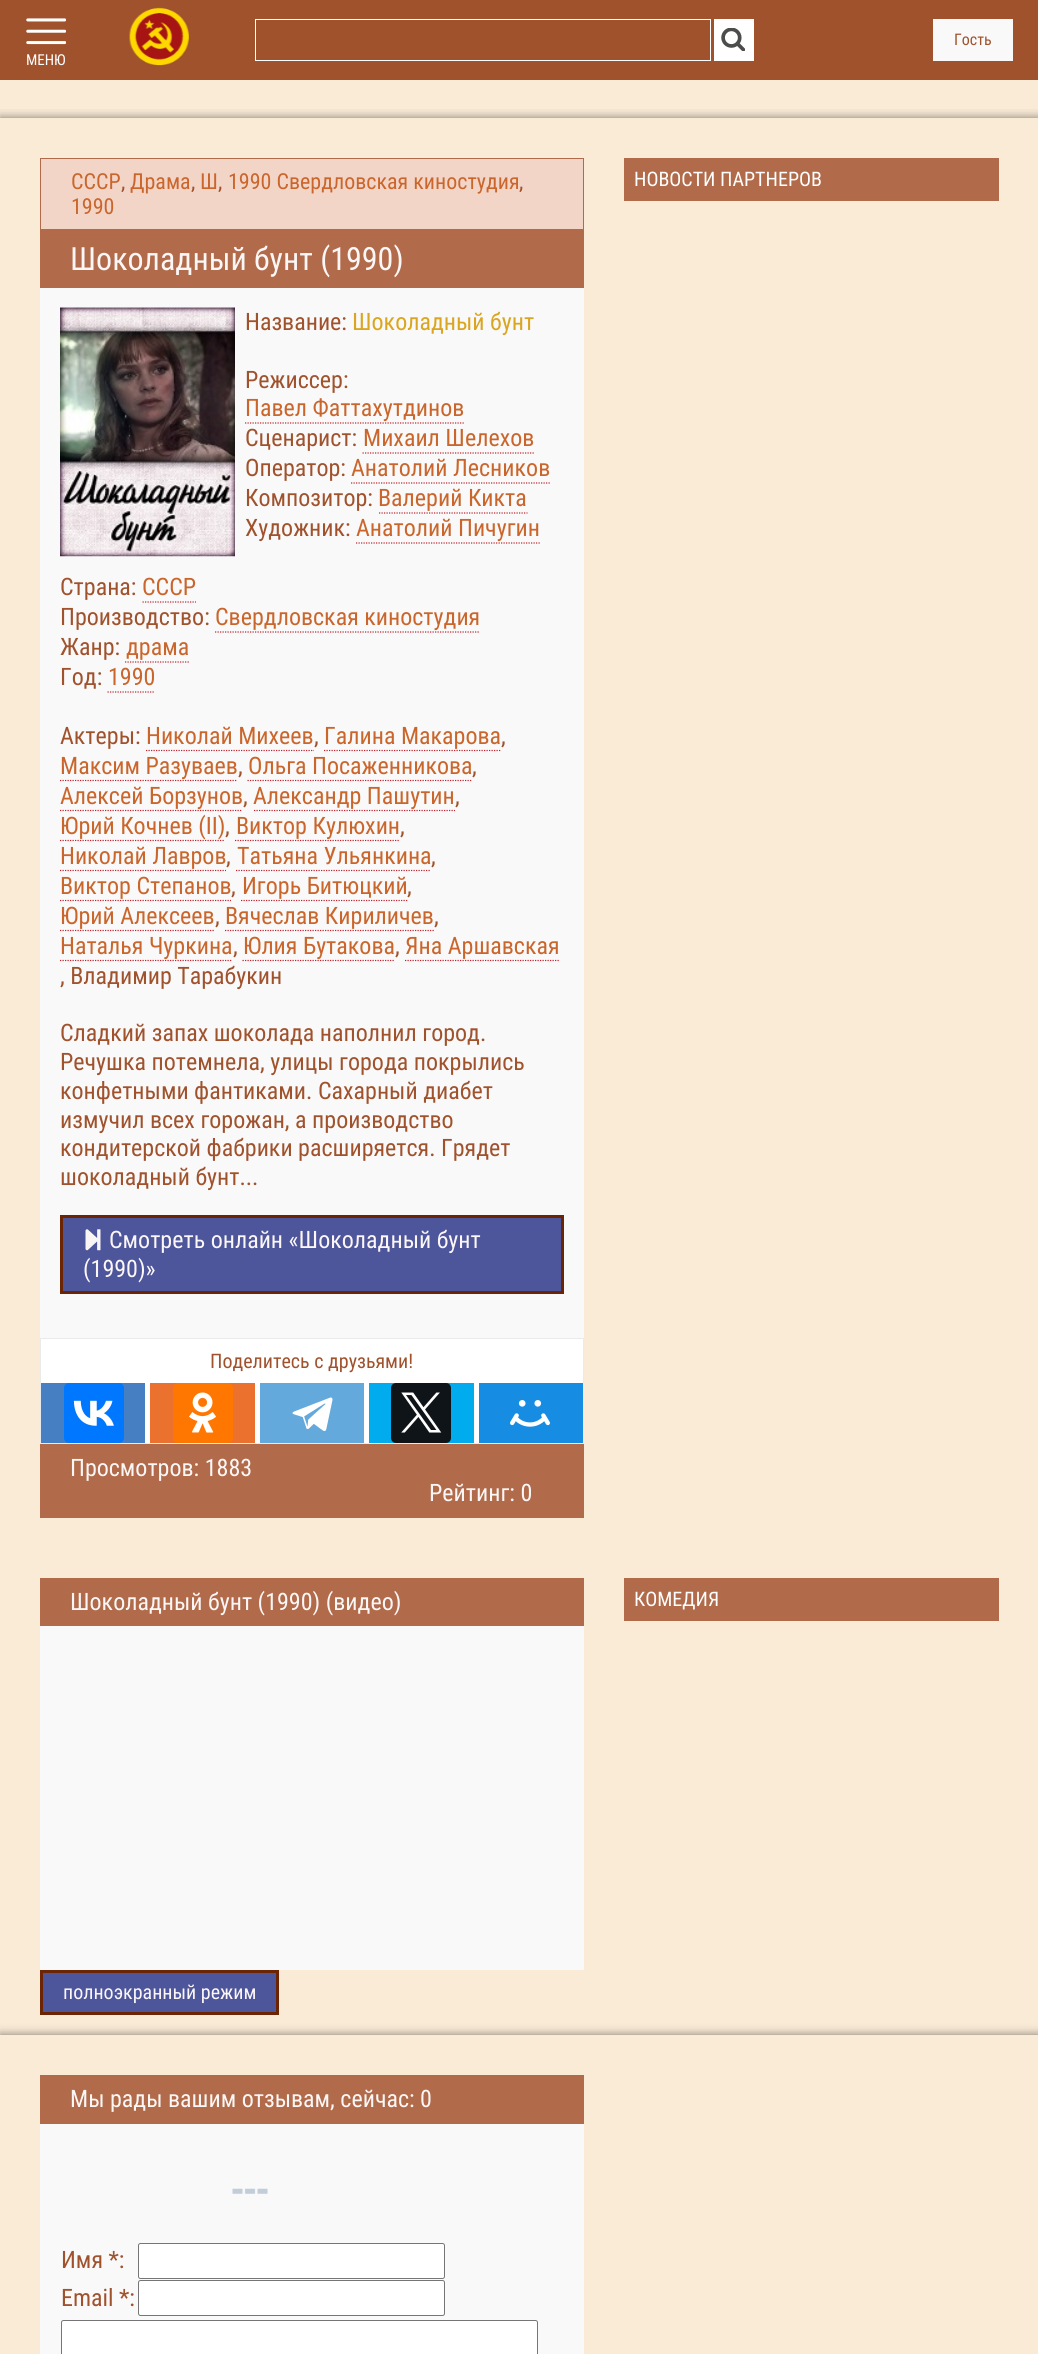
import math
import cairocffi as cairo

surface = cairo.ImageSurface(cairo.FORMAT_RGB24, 1038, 2354)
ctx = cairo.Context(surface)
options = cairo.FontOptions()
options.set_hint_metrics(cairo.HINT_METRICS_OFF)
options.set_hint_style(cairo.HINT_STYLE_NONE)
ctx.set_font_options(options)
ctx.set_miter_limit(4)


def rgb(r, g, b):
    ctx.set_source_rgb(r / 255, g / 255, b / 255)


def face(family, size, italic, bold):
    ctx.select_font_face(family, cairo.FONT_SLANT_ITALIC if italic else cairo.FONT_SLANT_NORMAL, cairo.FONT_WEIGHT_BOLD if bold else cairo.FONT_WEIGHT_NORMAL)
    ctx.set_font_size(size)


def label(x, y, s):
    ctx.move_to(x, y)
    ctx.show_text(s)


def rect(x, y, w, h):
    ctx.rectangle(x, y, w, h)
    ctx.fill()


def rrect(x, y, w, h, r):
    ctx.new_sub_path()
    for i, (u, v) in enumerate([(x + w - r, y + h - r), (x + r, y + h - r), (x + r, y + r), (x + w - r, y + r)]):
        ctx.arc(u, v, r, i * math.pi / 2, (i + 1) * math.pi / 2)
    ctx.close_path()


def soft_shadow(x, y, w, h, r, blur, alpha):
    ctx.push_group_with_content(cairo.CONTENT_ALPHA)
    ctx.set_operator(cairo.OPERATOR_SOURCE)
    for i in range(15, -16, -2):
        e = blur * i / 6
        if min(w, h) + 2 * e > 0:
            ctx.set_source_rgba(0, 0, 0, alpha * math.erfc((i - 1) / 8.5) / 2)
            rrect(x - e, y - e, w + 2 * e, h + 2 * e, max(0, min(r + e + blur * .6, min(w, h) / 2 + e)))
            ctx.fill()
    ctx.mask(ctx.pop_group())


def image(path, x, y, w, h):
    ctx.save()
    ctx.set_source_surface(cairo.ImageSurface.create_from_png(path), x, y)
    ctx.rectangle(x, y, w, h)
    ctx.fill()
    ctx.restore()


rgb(250, 235, 215)
ctx.paint()
rgb(160, 82, 45)
rect(0, 0, 1038, 80)
image('image0.png', 129, 7, 60, 59)
ctx.rectangle(255.5, 19.5, 455, 41)
rgb(255, 255, 255)
ctx.set_line_width(1)
ctx.stroke()
rect(714, 19, 40, 42)
image('image1.png', 721, 28, 24, 23)
rgb(249, 249, 249)
rect(933, 19, 80, 42)
face('Roboto Condensed', 16, 0, 0)
rgb(160, 82, 45)
label(954, 45, 'Гость')
image('image2.png', 26, 18, 40, 27)
face('Roboto Condensed', 15, 0, 0)
rgb(255, 255, 255)
label(26, 65, 'МЕНЮ')
ctx.save()
ctx.rectangle(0, 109, 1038, 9)
ctx.clip()
rgb(0, 0, 0)
soft_shadow(0, 118, 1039, 1917, 0, 5, 0.5)
ctx.restore()
rgb(243, 213, 200)
ctx.rectangle(40.5, 158.5, 543, 71)
ctx.fill_preserve()
rgb(177, 107, 74)
ctx.stroke()
face('Roboto Condensed', 22, 0, 0)
rgb(202, 102, 44)
label(71, 189, 'СССР')
rgb(160, 82, 45)
label(121, 189, ',')
rgb(202, 102, 44)
label(130, 189, 'Драма')
rgb(160, 82, 45)
label(191, 189, ',')
rgb(202, 102, 44)
label(200, 189, 'Ш')
rgb(160, 82, 45)
label(218, 189, ',')
rgb(202, 102, 44)
label(228, 189, '1990 Свердловская киностудия')
rgb(160, 82, 45)
label(519, 189, ',')
rgb(202, 102, 44)
label(71, 214, '1990')
rgb(177, 107, 74)
rect(40, 230, 544, 58)
face('Roboto Condensed', 32, 0, 0)
rgb(252, 247, 247)
label(70, 270, 'Шоколадный бунт (1990)')
rgb(249, 249, 249)
rect(40, 288, 544, 1050)
image('image3.png', 60, 307, 175, 250)
face('Roboto Condensed', 24, 0, 0)
rgb(160, 82, 45)
label(245, 330, 'Название:')
rgb(218, 165, 32)
label(352, 330, 'Шоколадный бунт')
rgb(160, 82, 45)
label(245, 388, 'Режиссер:')
ctx.new_path()
ctx.move_to(245, 423)
ctx.line_to(464, 423)
rgb(188, 36, 46)
ctx.set_line_width(1.2)
ctx.set_dash([1.25, 1.25])
ctx.stroke()
rgb(202, 102, 44)
label(245, 416, 'Павел Фаттахутдинов')
rgb(160, 82, 45)
label(245, 446, 'Сценарист:')
ctx.new_path()
ctx.move_to(362.5, 453)
ctx.line_to(534, 453)
rgb(188, 36, 46)
ctx.stroke()
rgb(202, 102, 44)
label(363, 446, 'Михаил Шелехов')
rgb(160, 82, 45)
label(245, 476, 'Оператор:')
ctx.new_path()
ctx.move_to(351, 483)
ctx.line_to(550, 483)
rgb(188, 36, 46)
ctx.stroke()
rgb(202, 102, 44)
label(351, 476, 'Анатолий Лесников')
rgb(160, 82, 45)
label(245, 506, 'Композитор:')
ctx.new_path()
ctx.move_to(379, 513)
ctx.line_to(527.5, 513)
rgb(188, 36, 46)
ctx.stroke()
rgb(202, 102, 44)
label(378, 506, 'Валерий Кикта')
rgb(160, 82, 45)
label(245, 536, 'Художник:')
ctx.new_path()
ctx.move_to(356, 543)
ctx.line_to(540, 543)
rgb(188, 36, 46)
ctx.stroke()
rgb(202, 102, 44)
label(356, 536, 'Анатолий Пичугин')
rgb(160, 82, 45)
label(60, 595, 'Страна:')
ctx.new_path()
ctx.move_to(142.5, 602)
ctx.line_to(196, 602)
rgb(188, 36, 46)
ctx.stroke()
rgb(202, 102, 44)
label(142, 595, 'СССР')
rgb(160, 82, 45)
label(60, 625, 'Производство:')
ctx.new_path()
ctx.move_to(215, 632)
ctx.line_to(480, 632)
rgb(188, 36, 46)
ctx.stroke()
rgb(202, 102, 44)
label(215, 625, 'Свердловская киностудия')
rgb(160, 82, 45)
label(60, 655, 'Жанр:')
ctx.new_path()
ctx.move_to(125, 662)
ctx.line_to(189, 662)
rgb(188, 36, 46)
ctx.stroke()
rgb(202, 102, 44)
label(126, 655, 'драма')
rgb(160, 82, 45)
label(60, 685, 'Год:')
ctx.new_path()
ctx.move_to(107.5, 692)
ctx.line_to(155, 692)
rgb(188, 36, 46)
ctx.stroke()
rgb(202, 102, 44)
label(108, 685, '1990')
rgb(160, 82, 45)
label(60, 744, 'Актеры:')
ctx.new_path()
ctx.move_to(146, 750.5)
ctx.line_to(314, 750.5)
rgb(188, 36, 46)
ctx.stroke()
rgb(202, 102, 44)
label(146, 744, 'Николай Михеев')
rgb(160, 82, 45)
label(314, 744, ',')
ctx.new_path()
ctx.move_to(324, 750.5)
ctx.line_to(501, 750.5)
rgb(188, 36, 46)
ctx.stroke()
rgb(202, 102, 44)
label(324, 744, 'Галина Макарова')
rgb(160, 82, 45)
label(501, 744, ',')
ctx.new_path()
ctx.move_to(60, 780.5)
ctx.line_to(237.5, 780.5)
rgb(188, 36, 46)
ctx.stroke()
rgb(202, 102, 44)
label(60, 774, 'Максим Разуваев')
rgb(160, 82, 45)
label(238, 774, ',')
ctx.new_path()
ctx.move_to(247.5, 780.5)
ctx.line_to(472.5, 780.5)
rgb(188, 36, 46)
ctx.stroke()
rgb(202, 102, 44)
label(248, 774, 'Ольга Посаженникова')
rgb(160, 82, 45)
label(472, 774, ',')
ctx.new_path()
ctx.move_to(60, 810.5)
ctx.line_to(242.5, 810.5)
rgb(188, 36, 46)
ctx.stroke()
rgb(202, 102, 44)
label(60, 804, 'Алексей Борзунов')
rgb(160, 82, 45)
label(243, 804, ',')
ctx.new_path()
ctx.move_to(254, 810.5)
ctx.line_to(455, 810.5)
rgb(188, 36, 46)
ctx.stroke()
rgb(202, 102, 44)
label(253, 804, 'Александр Пашутин')
rgb(160, 82, 45)
label(455, 804, ',')
ctx.new_path()
ctx.move_to(60, 840.5)
ctx.line_to(225, 840.5)
rgb(188, 36, 46)
ctx.stroke()
rgb(202, 102, 44)
label(60, 834, 'Юрий Кочнев (II)')
rgb(160, 82, 45)
label(225, 834, ',')
ctx.new_path()
ctx.move_to(235, 840.5)
ctx.line_to(400, 840.5)
rgb(188, 36, 46)
ctx.stroke()
rgb(202, 102, 44)
label(236, 834, 'Виктор Кулюхин')
rgb(160, 82, 45)
label(400, 834, ',')
ctx.new_path()
ctx.move_to(60, 870.5)
ctx.line_to(226, 870.5)
rgb(188, 36, 46)
ctx.stroke()
rgb(202, 102, 44)
label(60, 864, 'Николай Лавров')
rgb(160, 82, 45)
label(226, 864, ',')
ctx.new_path()
ctx.move_to(236, 870.5)
ctx.line_to(431, 870.5)
rgb(188, 36, 46)
ctx.stroke()
rgb(202, 102, 44)
label(237, 864, 'Татьяна Ульянкина')
rgb(160, 82, 45)
label(431, 864, ',')
ctx.new_path()
ctx.move_to(60, 900.5)
ctx.line_to(231, 900.5)
rgb(188, 36, 46)
ctx.stroke()
rgb(202, 102, 44)
label(60, 894, 'Виктор Степанов')
rgb(160, 82, 45)
label(231, 894, ',')
ctx.new_path()
ctx.move_to(241, 900.5)
ctx.line_to(407.5, 900.5)
rgb(188, 36, 46)
ctx.stroke()
rgb(202, 102, 44)
label(242, 894, 'Игорь Битюцкий')
rgb(160, 82, 45)
label(407, 894, ',')
ctx.new_path()
ctx.move_to(60, 930.5)
ctx.line_to(215, 930.5)
rgb(188, 36, 46)
ctx.stroke()
rgb(202, 102, 44)
label(60, 924, 'Юрий Алексеев')
rgb(160, 82, 45)
label(215, 924, ',')
ctx.new_path()
ctx.move_to(225, 930.5)
ctx.line_to(434, 930.5)
rgb(188, 36, 46)
ctx.stroke()
rgb(202, 102, 44)
label(225, 924, 'Вячеслав Кириличев')
rgb(160, 82, 45)
label(434, 924, ',')
ctx.new_path()
ctx.move_to(60, 960.5)
ctx.line_to(232.5, 960.5)
rgb(188, 36, 46)
ctx.stroke()
rgb(202, 102, 44)
label(60, 954, 'Наталья Чуркина')
rgb(160, 82, 45)
label(233, 954, ',')
ctx.new_path()
ctx.move_to(242.5, 960.5)
ctx.line_to(395, 960.5)
rgb(188, 36, 46)
ctx.stroke()
rgb(202, 102, 44)
label(243, 954, 'Юлия Бутакова')
rgb(160, 82, 45)
label(395, 954, ',')
ctx.new_path()
ctx.move_to(405, 960.5)
ctx.line_to(559, 960.5)
rgb(188, 36, 46)
ctx.stroke()
rgb(202, 102, 44)
label(405, 954, 'Яна Аршавская')
rgb(160, 82, 45)
label(60, 984, ', Владимир Тарабукин')
label(60, 1041, 'Сладкий запах шоколада наполнил город.')
label(60, 1070, 'Речушка потемнела, улицы города покрылись')
label(60, 1099, 'конфетными фантиками. Сахарный диабет')
label(60, 1128, 'измучил всех горожан, а производство')
label(60, 1156, 'кондитерской фабрики расширяется. Грядет')
label(60, 1185, 'шоколадный бунт...')
rgb(77, 85, 155)
ctx.rectangle(61.5, 1216.5, 501, 76)
ctx.fill_preserve()
rgb(107, 37, 4)
ctx.set_line_width(3)
ctx.set_dash([])
ctx.stroke()
image('image4.png', 85, 1229, 16, 22)
rgb(252, 247, 247)
label(109, 1248, 'Смотреть онлайн «Шоколадный бунт')
label(83, 1277, '(1990)»')
rgb(255, 255, 255)
ctx.rectangle(40.5, 1338.5, 543, 105)
ctx.fill_preserve()
rgb(234, 234, 234)
ctx.set_line_width(1)
ctx.stroke()
face('Roboto Condensed', 20, 0, 0)
rgb(160, 82, 45)
label(210, 1368, 'Поделитесь с друзьями!')
rgb(70, 128, 194)
rect(41, 1383, 104, 60)
rgb(0, 119, 255)
rrect(64, 1383, 60, 60, 5)
ctx.fill()
image('image5.png', 73, 1400, 41, 26)
rgb(235, 114, 46)
rect(150, 1383, 105, 60)
rgb(255, 119, 0)
rrect(173, 1383, 60, 60, 5)
ctx.fill()
image('image6.png', 189, 1392, 27, 41)
rgb(100, 169, 220)
rect(260, 1383, 104, 60)
image('image7.png', 292, 1397, 41, 34)
rgb(0, 172, 237)
rect(369, 1383, 105, 60)
rgb(15, 20, 25)
rrect(391, 1383, 60, 60, 5)
ctx.fill()
image('image8.png', 401, 1392, 41, 41)
rgb(22, 141, 226)
rect(479, 1383, 104, 60)
image('image9.png', 510, 1400, 40, 27)
rgb(177, 107, 74)
rect(40, 1444, 544, 74)
face('Roboto Condensed', 24, 0, 0)
rgb(252, 247, 247)
label(70, 1476, 'Просмотров: 1883')
label(429, 1501, 'Рейтинг: 0')
rgb(177, 107, 74)
rect(624, 158, 375, 43)
face('Roboto Condensed', 20, 0, 0)
rgb(255, 255, 255)
label(634, 186, 'НОВОСТИ ПАРТНЕРОВ')
rgb(177, 107, 74)
rect(40, 1578, 544, 48)
face('Roboto Condensed', 24, 0, 0)
rgb(252, 247, 247)
label(70, 1610, 'Шоколадный бунт (1990) (видео)')
rgb(249, 249, 249)
rect(40, 1626, 544, 344)
rgb(77, 85, 155)
ctx.rectangle(41.5, 1971.5, 236, 42)
ctx.fill_preserve()
rgb(107, 37, 4)
ctx.set_line_width(3)
ctx.stroke()
face('Roboto Condensed', 20, 0, 0)
rgb(252, 247, 247)
label(63, 1999, 'полноэкранный режим')
rgb(177, 107, 74)
rect(624, 1578, 375, 43)
rgb(255, 255, 255)
label(634, 1606, 'КОМЕДИЯ')
rgb(0, 0, 0)
soft_shadow(0, 2035, 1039, 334, 0, 5, 0.5)
rgb(250, 235, 215)
rect(0, 2035, 1038, 319)
rgb(177, 107, 74)
rect(40, 2075, 544, 49)
face('Roboto Condensed', 24, 0, 0)
rgb(252, 247, 247)
label(70, 2107, 'Мы рады вашим отзывам, сейчас: 0')
rgb(249, 249, 249)
rect(40, 2124, 544, 230)
image('image10.png', 232, 2188, 36, 6)
rgb(160, 82, 45)
label(61, 2268, 'Имя *:')
rgb(255, 255, 255)
rrect(138.5, 2243.5, 306, 35, 2)
ctx.fill_preserve()
rgb(118, 118, 118)
ctx.set_line_width(1)
ctx.stroke()
rgb(160, 82, 45)
label(61, 2306, 'Email *:')
rgb(255, 255, 255)
rrect(138.5, 2280.5, 306, 35, 2)
ctx.fill_preserve()
rgb(118, 118, 118)
ctx.stroke()
rgb(255, 255, 255)
rrect(61.5, 2320.5, 476, 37, 2)
ctx.fill_preserve()
rgb(118, 118, 118)
ctx.stroke()
surface.write_to_png('render.png')
